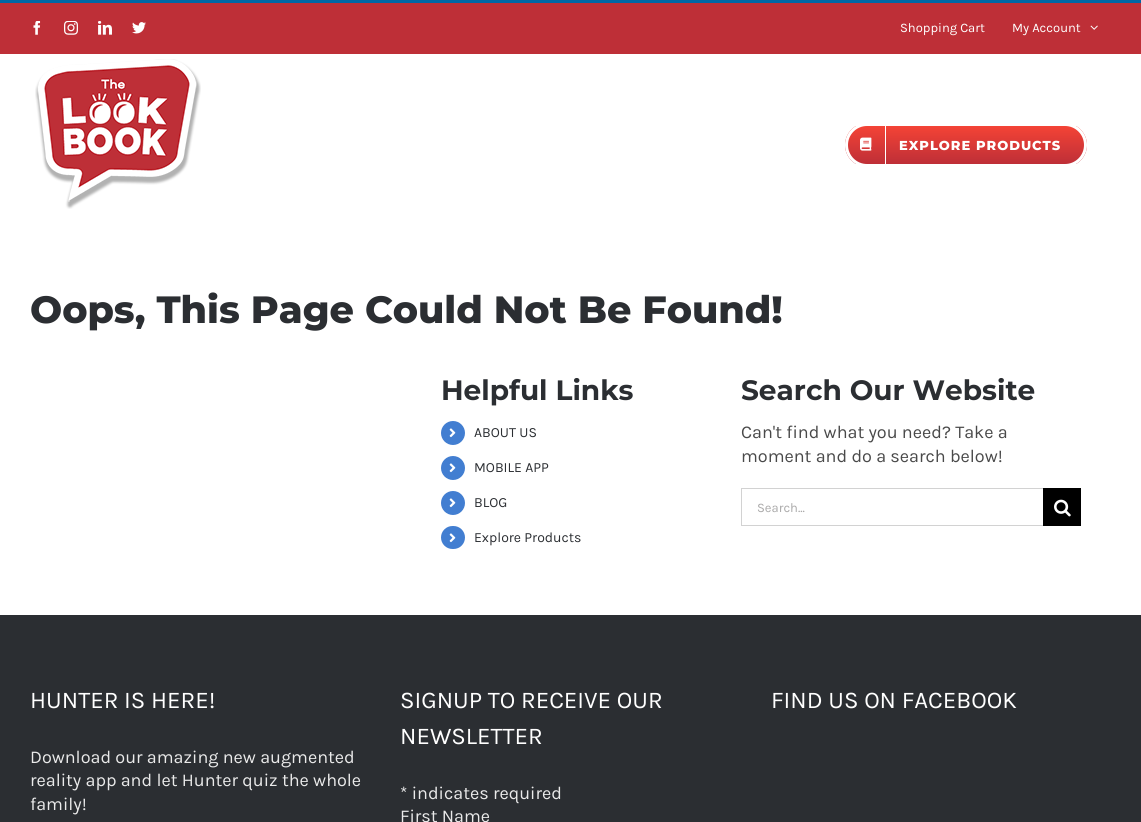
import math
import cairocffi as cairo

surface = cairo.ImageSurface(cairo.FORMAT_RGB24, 1141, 822)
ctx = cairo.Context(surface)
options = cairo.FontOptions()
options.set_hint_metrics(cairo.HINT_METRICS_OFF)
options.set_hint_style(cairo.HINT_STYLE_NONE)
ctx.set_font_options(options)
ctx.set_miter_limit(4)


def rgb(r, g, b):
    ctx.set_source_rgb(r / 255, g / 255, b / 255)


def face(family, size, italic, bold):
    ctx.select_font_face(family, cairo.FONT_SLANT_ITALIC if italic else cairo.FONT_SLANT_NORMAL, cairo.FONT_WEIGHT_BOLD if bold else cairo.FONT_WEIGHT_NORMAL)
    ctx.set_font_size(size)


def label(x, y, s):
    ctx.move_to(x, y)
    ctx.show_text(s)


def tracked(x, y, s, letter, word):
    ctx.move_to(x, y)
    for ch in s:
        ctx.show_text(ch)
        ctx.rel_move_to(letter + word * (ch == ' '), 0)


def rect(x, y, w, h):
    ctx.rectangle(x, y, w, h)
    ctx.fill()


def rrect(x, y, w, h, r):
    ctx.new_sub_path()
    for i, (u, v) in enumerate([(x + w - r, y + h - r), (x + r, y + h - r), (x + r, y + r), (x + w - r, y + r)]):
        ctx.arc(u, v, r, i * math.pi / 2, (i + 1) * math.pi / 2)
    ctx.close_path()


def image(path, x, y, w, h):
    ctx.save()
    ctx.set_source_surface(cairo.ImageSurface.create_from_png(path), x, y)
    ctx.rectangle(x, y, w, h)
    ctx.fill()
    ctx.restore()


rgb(255, 255, 255)
ctx.paint()
rgb(190, 47, 55)
rect(0, 3, 1141, 51)
rgb(0, 103, 165)
rect(0, 0, 1141, 3)
image('image0.png', 33, 21, 8, 14)
image('image1.png', 64, 21, 14, 14)
image('image2.png', 98, 21, 14, 14)
image('image3.png', 132, 22, 14, 12)
face('Karla', 13, 0, 0)
rgb(255, 255, 255)
label(900, 32, 'Shopping Cart')
label(1012, 32, 'My Account')
image('image4.png', 1090, 25, 8, 5)
image('image5.png', 35, 59, 166, 150)
ctx.save()
rrect(845, 123, 242, 44, 22)
ctx.clip()
gradient = cairo.LinearGradient(966, 164, 966, 126)
gradient.add_color_stop_rgba(0, 0.745, 0.184, 0.216, 1)
gradient.add_color_stop_rgba(1, 0.957, 0.263, 0.212, 1)
ctx.set_source(gradient)
rect(845, 126, 242, 38)
ctx.restore()
rrect(846.5, 124.5, 239, 41, 20.5)
ctx.set_line_width(3)
ctx.stroke()
rect(885, 126, 1, 38)
image('image6.png', 860, 137, 12, 14)
face('Montserrat ExtraBold', 13, 0, 0)
tracked(899, 150, 'EXPLORE PRODUCTS', 1, 0)
face('Montserrat ExtraBold', 38, 0, 0)
rgb(43, 46, 50)
label(30, 323, 'Oops, This Page Could Not Be Found!')
face('Montserrat', 28, 0, 1)
label(441, 400, 'Helpful Links')
rgb(66, 126, 209)
ctx.new_path()
ctx.arc(453, 433, 12, 0, 2 * math.pi)
ctx.fill()
image('image7.png', 449, 428, 7, 10)
face('Karla', 14, 0, 0)
rgb(43, 46, 50)
label(474, 437, 'ABOUT US')
rgb(66, 126, 209)
ctx.new_path()
ctx.arc(453, 468, 12, 0, 2 * math.pi)
ctx.fill()
image('image7.png', 449, 463, 7, 10)
rgb(43, 46, 50)
label(474, 472, 'MOBILE APP')
rgb(66, 126, 209)
ctx.new_path()
ctx.arc(453, 503, 12, 0, 2 * math.pi)
ctx.fill()
image('image7.png', 449, 498, 7, 10)
rgb(43, 46, 50)
label(474, 507, 'BLOG')
rgb(66, 126, 209)
rrect(441, 526, 24, 23, 11.5)
ctx.fill()
image('image7.png', 449, 533, 7, 10)
rgb(43, 46, 50)
label(474, 542, 'Explore Products')
face('Montserrat', 28, 0, 1)
label(741, 400, 'Search Our Website')
face('Karla', 18, 0, 0)
rgb(73, 73, 73)
label(741, 438, 'Can\'t find what you need? Take a')
label(741, 462, 'moment and do a search below!')
rgb(210, 210, 210)
rect(741, 488, 302, 1)
rect(741, 525, 302, 1)
rect(741, 488, 1, 38)
face('Karla', 13, 0, 0)
rgb(170, 169, 169)
label(757, 512, 'Search...')
rgb(0, 0, 0)
rect(1043, 488, 38, 38)
image('image8.png', 1054, 499, 17, 18)
rgb(43, 46, 50)
rect(0, 615, 1141, 207)
face('Karla', 24, 0, 0)
rgb(255, 255, 255)
label(30, 708, 'HUNTER IS HERE!')
face('Karla', 18, 0, 0)
rgb(234, 234, 234)
label(30, 763, 'Download our amazing new augmented')
label(30, 786, 'reality app and let Hunter quiz the whole')
label(30, 810, 'family!')
face('Karla', 24, 0, 0)
rgb(255, 255, 255)
label(400, 708, 'SIGNUP TO RECEIVE OUR')
label(400, 744, 'NEWSLETTER')
face('Karla', 18, 0, 0)
rgb(234, 234, 234)
label(400, 799, '* indicates required')
label(400, 822, 'First Name')
face('Karla', 24, 0, 0)
rgb(255, 255, 255)
label(771, 708, 'FIND US ON FACEBOOK')
surface.write_to_png('render.png')
